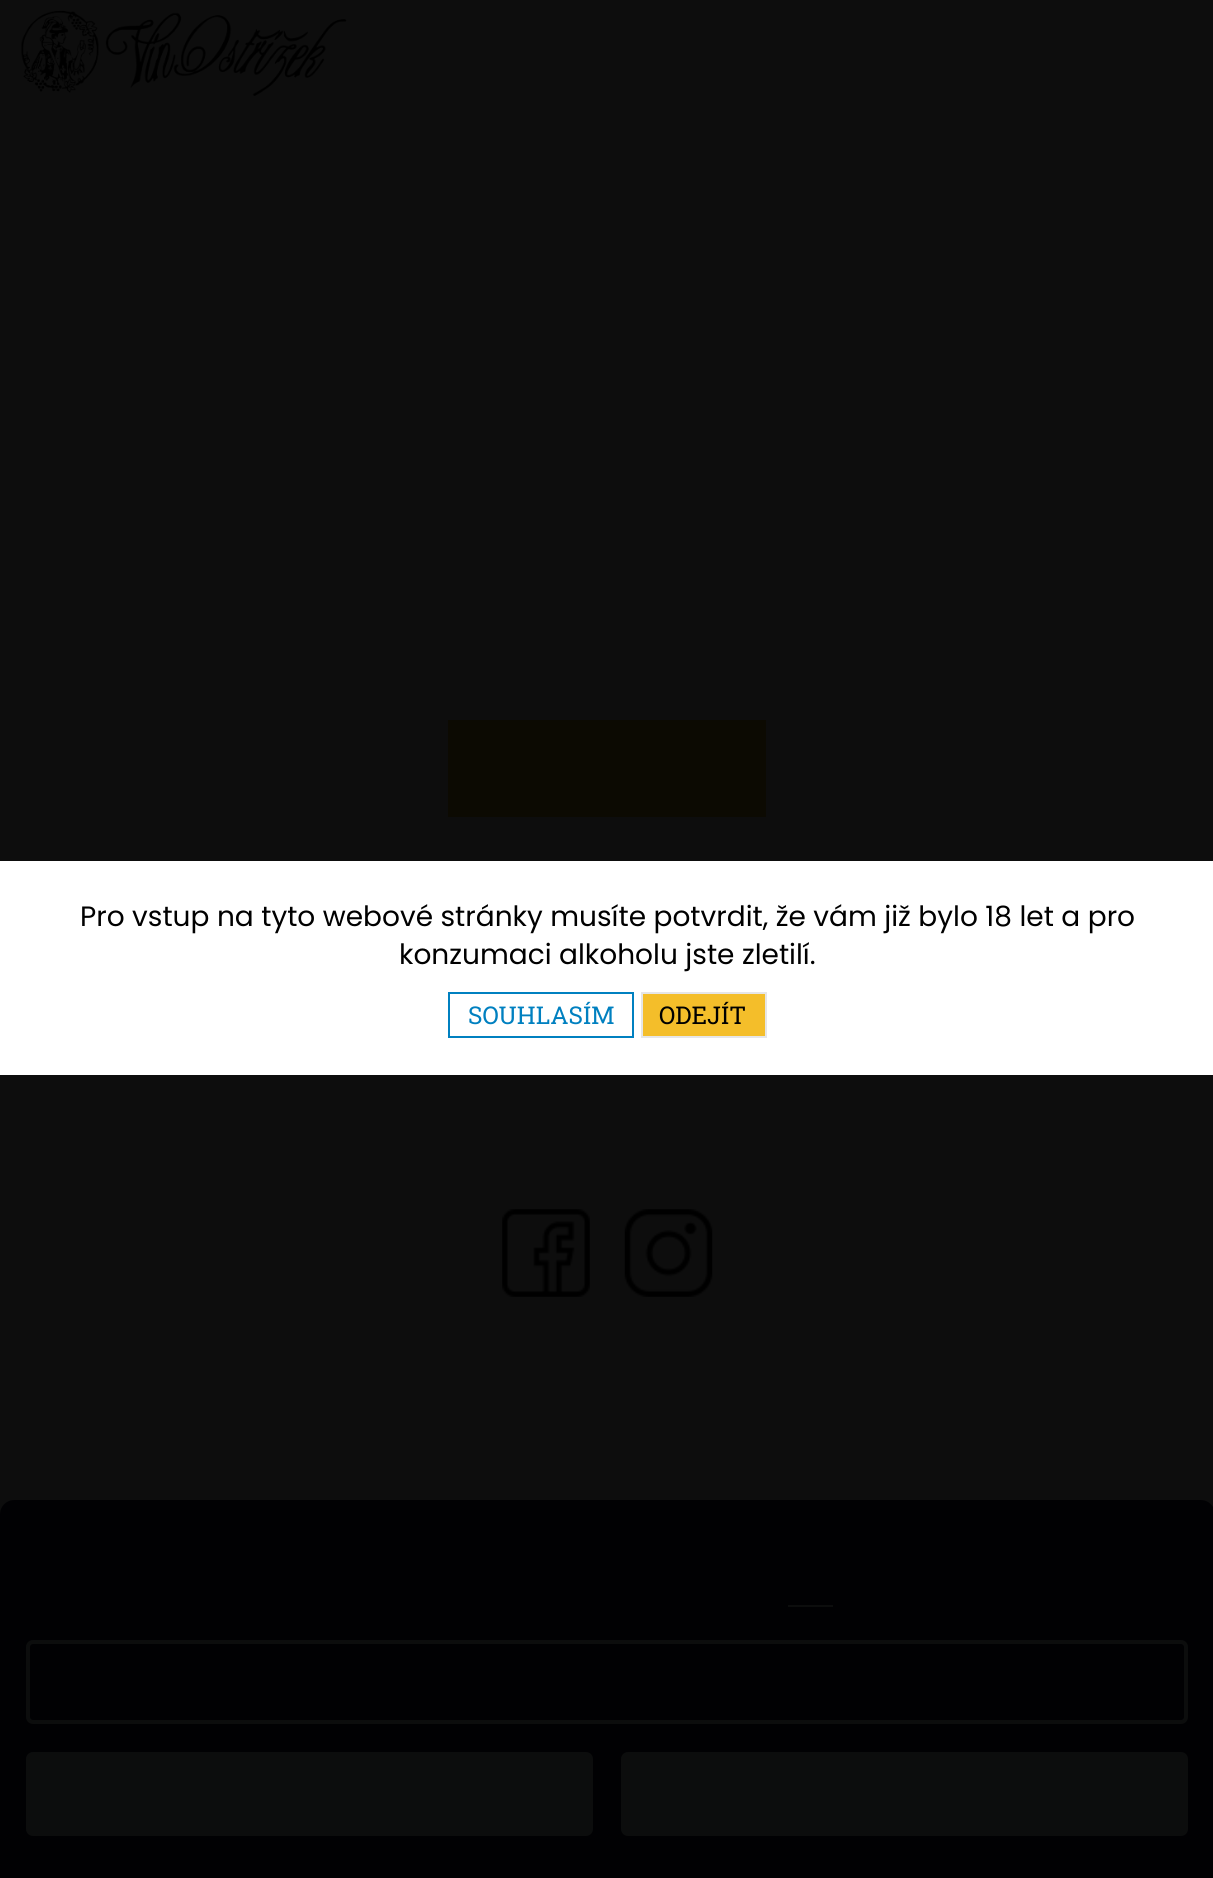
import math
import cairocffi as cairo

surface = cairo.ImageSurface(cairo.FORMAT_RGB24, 1213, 1878)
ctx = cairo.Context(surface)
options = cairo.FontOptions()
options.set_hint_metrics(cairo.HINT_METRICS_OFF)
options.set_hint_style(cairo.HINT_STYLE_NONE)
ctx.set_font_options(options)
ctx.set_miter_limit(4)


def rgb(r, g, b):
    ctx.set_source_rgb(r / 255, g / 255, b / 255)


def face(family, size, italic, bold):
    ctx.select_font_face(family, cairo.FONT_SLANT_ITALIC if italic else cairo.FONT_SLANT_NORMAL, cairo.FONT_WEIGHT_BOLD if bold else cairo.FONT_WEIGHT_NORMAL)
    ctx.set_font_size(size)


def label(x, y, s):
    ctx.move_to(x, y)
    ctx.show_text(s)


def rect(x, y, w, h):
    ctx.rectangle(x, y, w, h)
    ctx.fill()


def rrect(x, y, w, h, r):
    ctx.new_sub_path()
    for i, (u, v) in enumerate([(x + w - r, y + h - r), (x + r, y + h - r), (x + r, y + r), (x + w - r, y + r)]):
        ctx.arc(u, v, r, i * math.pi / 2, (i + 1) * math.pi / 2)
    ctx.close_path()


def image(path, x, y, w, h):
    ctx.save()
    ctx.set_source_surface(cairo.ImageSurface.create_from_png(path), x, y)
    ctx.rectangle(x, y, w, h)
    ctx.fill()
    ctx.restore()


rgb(13, 13, 13)
ctx.paint()
image('image0.png', 20, 10, 327, 86)
rgb(12, 10, 2)
rect(448, 720, 318, 97)
image('image1.png', 502, 1209, 88, 88)
image('image2.png', 624, 1209, 89, 88)
rgb(255, 255, 255)
rect(0, 861, 1213, 214)
face('Poppins', 28, 0, 0)
rgb(0, 0, 0)
label(80, 926, 'Pro vstup na tyto webové stránky musíte potvrdit, že vám již bylo 18 let a pro')
label(399, 964, 'konzumaci alkoholu jste zletilí.')
ctx.rectangle(449, 993, 184, 44)
rgb(0, 128, 192)
ctx.stroke()
face('Roboto Slab', 24.5, 0, 0)
label(468, 1024, 'SOUHLASÍM')
rgb(244, 190, 42)
ctx.rectangle(642, 993, 124, 44)
ctx.fill_preserve()
rgb(230, 230, 230)
ctx.stroke()
rgb(0, 0, 0)
label(659, 1024, 'ODEJÍT')
rgb(1, 1, 3)
ctx.new_path()
ctx.move_to(14, 1500)
ctx.line_to(1201, 1500)
ctx.curve_to(1208.5, 1500, 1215, 1506.5, 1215, 1514)
ctx.line_to(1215, 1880)
ctx.line_to(0, 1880)
ctx.line_to(0, 1514)
ctx.curve_to(0, 1506.5, 6.5, 1500, 14, 1500)
ctx.close_path()
ctx.fill()
rgb(12, 13, 13)
rect(788, 1605, 45, 2)
rrect(28, 1642, 1158, 80, 5)
ctx.set_line_width(4)
ctx.stroke()
rrect(26, 1752, 567, 84, 7)
ctx.fill()
rrect(621, 1752, 567, 84, 7)
ctx.fill()
surface.write_to_png('render.png')
